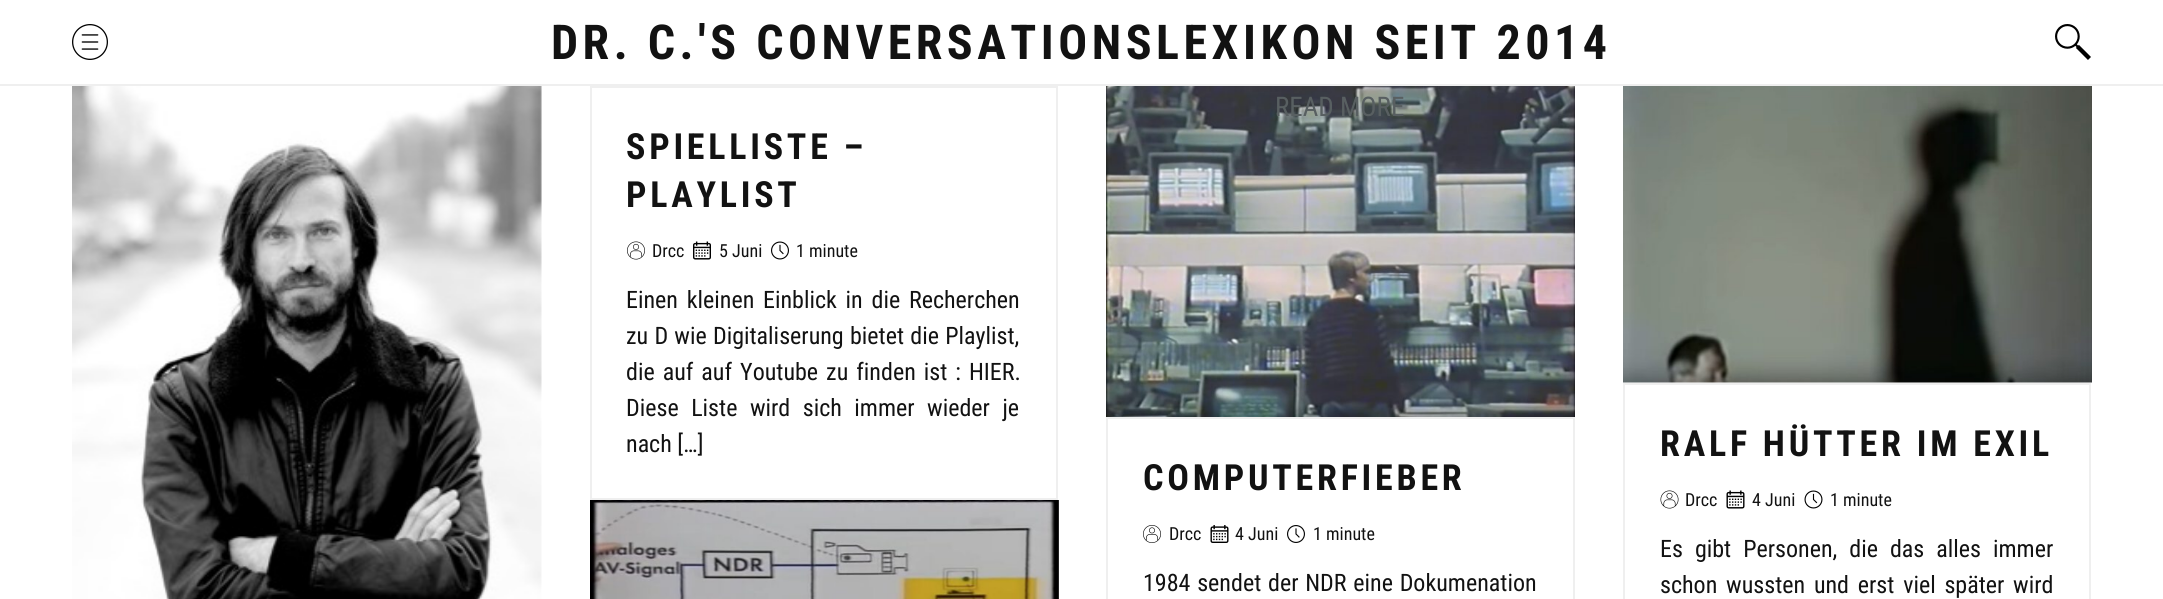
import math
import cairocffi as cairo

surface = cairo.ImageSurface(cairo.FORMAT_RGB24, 2163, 599)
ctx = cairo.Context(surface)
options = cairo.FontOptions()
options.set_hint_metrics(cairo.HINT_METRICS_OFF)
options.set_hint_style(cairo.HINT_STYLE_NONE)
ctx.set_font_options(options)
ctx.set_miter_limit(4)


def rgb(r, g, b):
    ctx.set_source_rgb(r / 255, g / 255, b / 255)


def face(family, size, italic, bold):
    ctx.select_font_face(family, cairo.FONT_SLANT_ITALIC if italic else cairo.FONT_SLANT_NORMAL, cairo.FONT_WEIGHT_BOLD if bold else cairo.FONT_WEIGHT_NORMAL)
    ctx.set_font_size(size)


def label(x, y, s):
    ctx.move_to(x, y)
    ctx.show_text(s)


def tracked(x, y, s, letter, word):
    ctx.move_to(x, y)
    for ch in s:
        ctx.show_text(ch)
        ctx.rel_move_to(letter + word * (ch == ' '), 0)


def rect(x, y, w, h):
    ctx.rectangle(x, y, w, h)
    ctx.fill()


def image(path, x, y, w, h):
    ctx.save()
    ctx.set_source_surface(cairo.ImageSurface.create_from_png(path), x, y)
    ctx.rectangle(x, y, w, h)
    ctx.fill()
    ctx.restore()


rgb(255, 255, 255)
ctx.paint()
rgb(239, 239, 239)
rect(0, 84, 2163, 2)
image('image0.png', 72, 24, 36, 36)
face('Roboto Condensed', 48, 0, 1)
rgb(18, 18, 18)
tracked(551, 59, 'DR. C.\'S CONVERSATIONSLEXIKON SEIT 2014', 4.5, 0)
image('image1.png', 2055, 24, 36, 36)
image('image2.png', 72, 86, 470, 513)
ctx.rectangle(591, 87, 466, 412)
rgb(239, 239, 239)
ctx.stroke()
face('Roboto Condensed', 36, 0, 1)
rgb(18, 18, 18)
tracked(626, 159, 'SPIELLISTE –', 3.75, 0)
tracked(626, 207, 'PLAYLIST', 3.75, 0)
image('image3.png', 627, 241, 18, 19)
face('Roboto Condensed', 18, 0, 0)
label(652, 257, 'Drcc')
image('image4.png', 693, 241, 18, 19)
label(719, 257, '5 Juni')
image('image5.png', 771, 241, 18, 19)
label(796, 257, '1 minute')
face('Roboto Condensed', 24, 0, 0)
tracked(626, 308, 'Einen kleinen Einblick in die Recherchen', 0, 3.25)
tracked(626, 344, 'zu D wie Digitaliserung bietet die Playlist,', 0, 0.75)
tracked(626, 380, 'die auf auf Youtube zu finden ist : HIER.', 0, 2.5)
tracked(626, 416, 'Diese Liste wird sich immer wieder je', 0, 7)
label(626, 452, 'nach […]')
image('image6.png', 1106, 86, 469, 331)
face('Roboto Condensed', 27, 0, 0)
rgb(88, 95, 97)
label(1275, 116, 'READ MORE')
ctx.rectangle(1107, 418, 467, 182)
rgb(239, 239, 239)
ctx.stroke()
face('Roboto Condensed', 36, 0, 1)
rgb(18, 18, 18)
tracked(1143, 490, 'COMPUTERFIEBER', 3.75, 0)
image('image7.png', 1143, 525, 18, 18)
face('Roboto Condensed', 18, 0, 0)
label(1169, 540, 'Drcc')
image('image8.png', 1210, 525, 19, 18)
label(1235, 540, '4 Juni')
image('image9.png', 1287, 525, 18, 18)
label(1313, 540, '1 minute')
face('Roboto Condensed', 24, 0, 0)
tracked(1143, 591, '1984 sendet der NDR eine Dokumenation', 0, 1.25)
image('image10.png', 590, 500, 469, 99)
image('image11.png', 1623, 86, 469, 297)
ctx.rectangle(1624, 384, 466, 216)
rgb(239, 239, 239)
ctx.stroke()
face('Roboto Condensed', 36, 0, 1)
rgb(18, 18, 18)
tracked(1660, 456, 'RALF HÜTTER IM EXIL', 3.75, 0)
image('image12.png', 1660, 490, 19, 19)
face('Roboto Condensed', 18, 0, 0)
label(1685, 506, 'Drcc')
image('image13.png', 1726, 490, 19, 19)
label(1752, 506, '4 Juni')
image('image14.png', 1804, 490, 19, 19)
label(1830, 506, '1 minute')
face('Roboto Condensed', 24, 0, 0)
tracked(1660, 557, 'Es gibt Personen, die das alles immer', 0, 6.5)
tracked(1660, 593, 'schon wussten und erst viel später wird', 0, 3.25)
surface.write_to_png('render.png')
